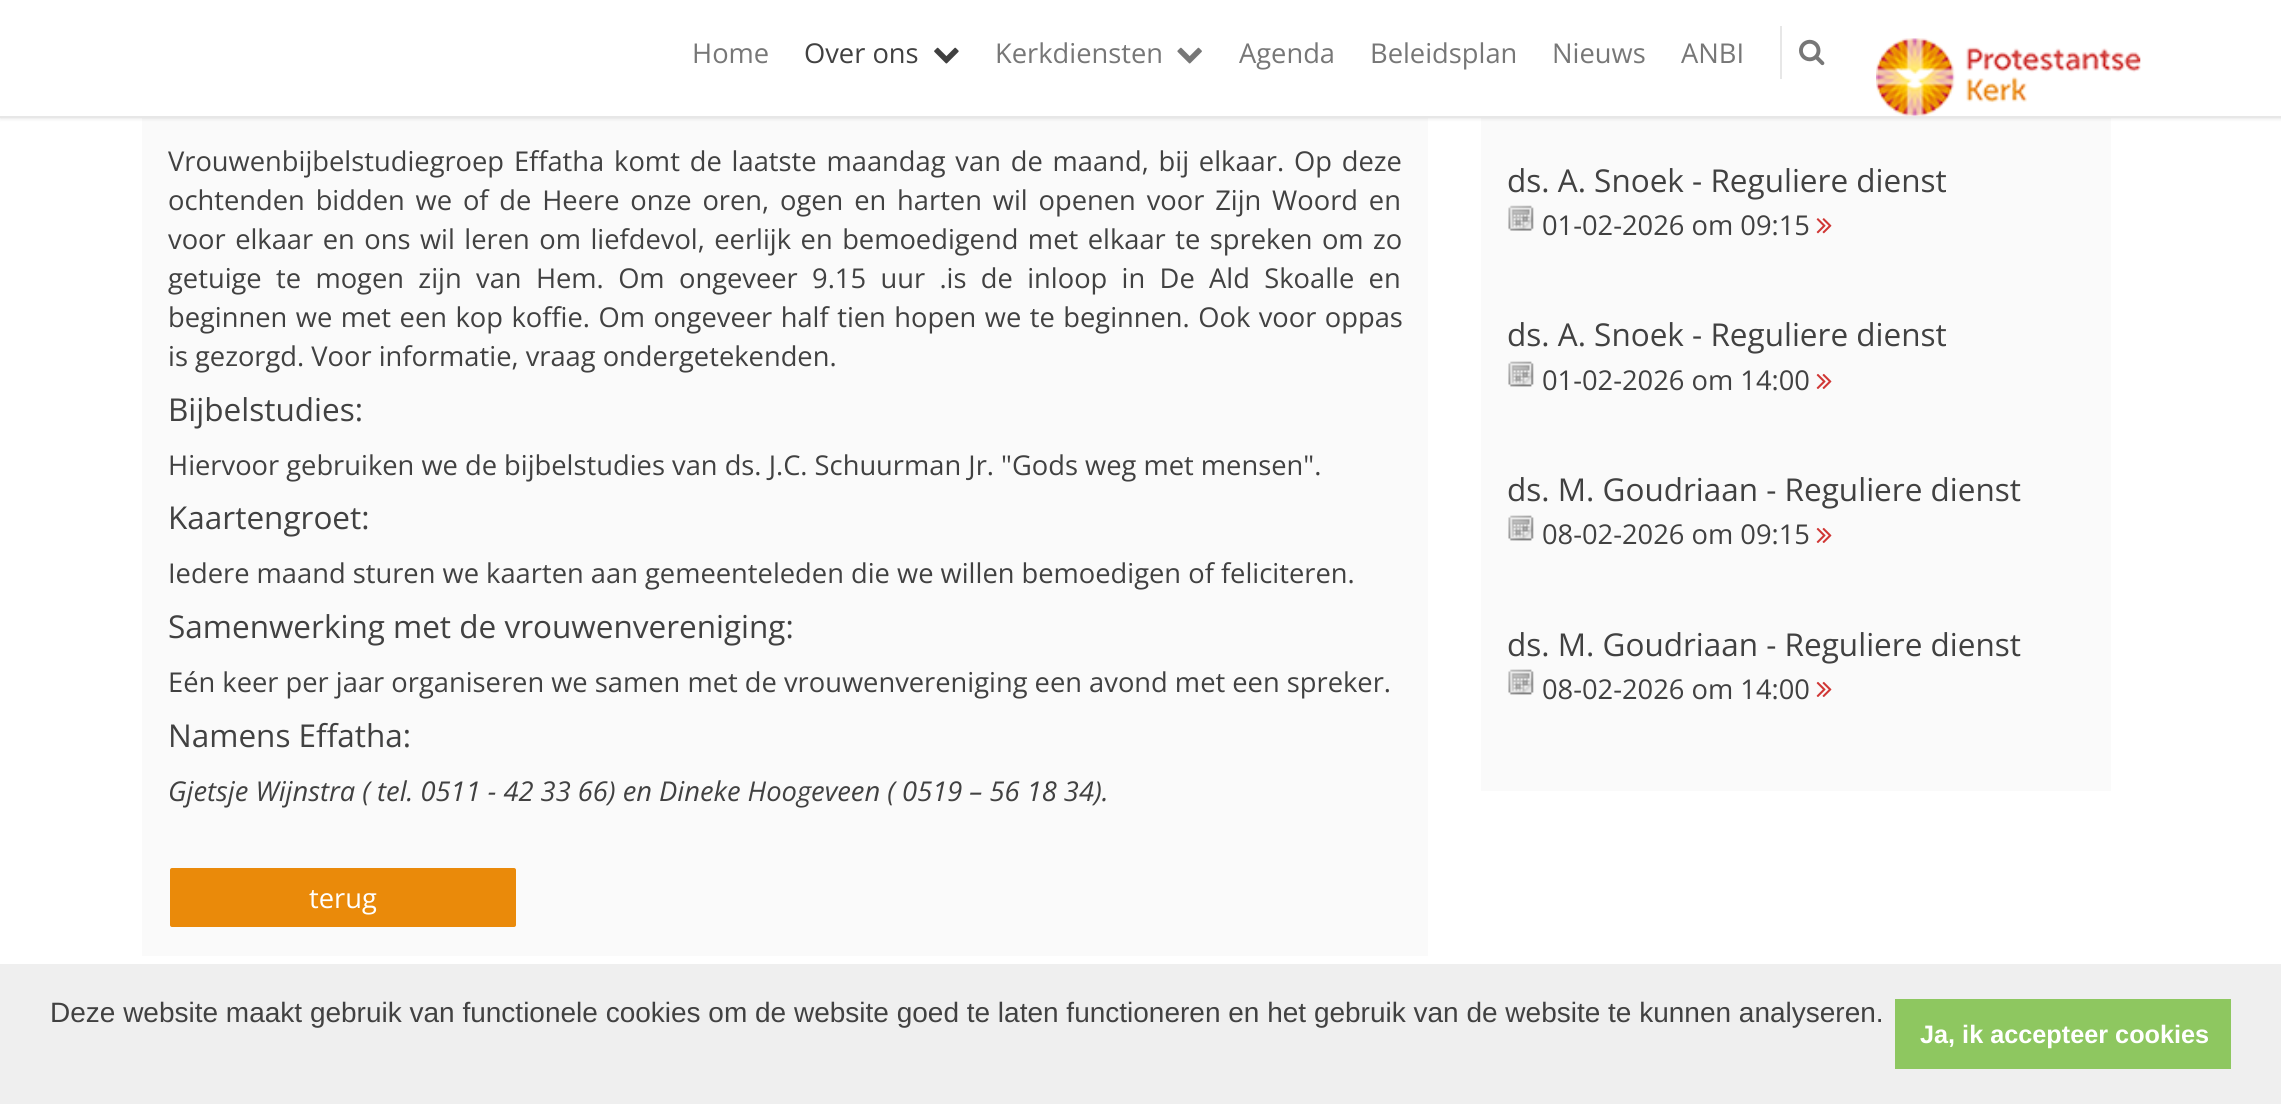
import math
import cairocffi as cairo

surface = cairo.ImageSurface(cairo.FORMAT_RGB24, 2281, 1104)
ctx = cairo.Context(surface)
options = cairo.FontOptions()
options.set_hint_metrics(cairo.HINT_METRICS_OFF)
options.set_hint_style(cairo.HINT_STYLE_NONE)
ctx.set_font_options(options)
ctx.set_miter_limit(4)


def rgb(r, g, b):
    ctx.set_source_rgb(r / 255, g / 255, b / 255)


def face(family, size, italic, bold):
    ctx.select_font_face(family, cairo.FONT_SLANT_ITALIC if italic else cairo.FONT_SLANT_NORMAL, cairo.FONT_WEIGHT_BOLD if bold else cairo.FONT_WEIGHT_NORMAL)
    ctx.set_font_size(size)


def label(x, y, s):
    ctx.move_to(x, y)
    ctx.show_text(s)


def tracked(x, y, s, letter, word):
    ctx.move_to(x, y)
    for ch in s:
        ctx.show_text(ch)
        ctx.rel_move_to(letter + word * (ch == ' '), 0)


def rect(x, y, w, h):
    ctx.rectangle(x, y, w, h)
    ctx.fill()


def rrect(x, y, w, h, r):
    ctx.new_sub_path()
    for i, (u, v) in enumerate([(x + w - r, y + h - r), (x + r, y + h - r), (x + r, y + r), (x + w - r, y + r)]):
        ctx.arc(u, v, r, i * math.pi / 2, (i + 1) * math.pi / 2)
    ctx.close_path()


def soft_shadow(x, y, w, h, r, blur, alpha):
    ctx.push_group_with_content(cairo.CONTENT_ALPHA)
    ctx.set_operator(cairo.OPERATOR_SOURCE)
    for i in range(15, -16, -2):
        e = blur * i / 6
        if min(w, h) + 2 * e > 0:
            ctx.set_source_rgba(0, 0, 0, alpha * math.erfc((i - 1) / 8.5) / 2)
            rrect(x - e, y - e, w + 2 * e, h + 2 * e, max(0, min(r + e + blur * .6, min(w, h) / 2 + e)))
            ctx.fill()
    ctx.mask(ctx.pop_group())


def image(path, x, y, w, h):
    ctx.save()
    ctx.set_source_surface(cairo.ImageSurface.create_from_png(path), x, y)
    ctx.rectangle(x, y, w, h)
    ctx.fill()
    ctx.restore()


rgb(255, 255, 255)
ctx.paint()
rgb(250, 250, 250)
rect(142, 118, 1286, 838)
rect(1481, 118, 630, 673)
rgb(0, 0, 0)
soft_shadow(0, 0, 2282, 117, 0, 2.5, 0.22)
rgb(255, 255, 255)
rect(0, 0, 2281, 116)
rgb(231, 231, 231)
rect(0, 116, 2281, 2)
face('Open Sans', 27.3, 0, 0)
rgb(119, 119, 119)
label(692, 63, 'Home')
rgb(65, 65, 65)
label(804, 63, 'Over ons')
image('image0.png', 934, 47, 25, 17)
rgb(119, 119, 119)
label(995, 63, 'Kerkdiensten')
image('image1.png', 1177, 47, 25, 17)
label(1239, 63, 'Agenda')
label(1370, 63, 'Beleidsplan')
label(1552, 63, 'Nieuws')
label(1681, 63, 'ANBI')
rgb(231, 231, 231)
rect(1780, 26, 2, 53)
image('image2.png', 1799, 39, 26, 27)
image('image3.png', 1876, 38, 265, 78)
rgb(65, 65, 65)
tracked(168, 171, 'Vrouwenbijbelstudiegroep Effatha komt de laatste maandag van de maand, bij elkaar. Op deze', 0, 2.75)
tracked(168, 210, 'ochtenden bidden we of de Heere onze oren, ogen en harten wil openen voor Zijn Woord en', 0, 3.75)
tracked(168, 249, 'voor elkaar en ons wil leren om liefdevol, eerlijk en bemoedigend met elkaar te spreken om zo', 0, 2.4)
tracked(168, 288, 'getuige te mogen zijn van Hem. Om ongeveer 9.15 uur .is de inloop in De Ald Skoalle en', 0, 7.25)
tracked(168, 327, 'beginnen we met een kop koffie. Om ongeveer half tien hopen we te beginnen. Ook voor oppas', 0, 1.4)
label(168, 366, 'is gezorgd. Voor informatie, vraag ondergetekenden.')
face('Open Sans', 31.5, 0, 0)
label(168, 421, 'Bijbelstudies:')
face('Open Sans', 27.3, 0, 0)
label(168, 475, 'Hiervoor gebruiken we de bijbelstudies van ds. J.C. Schuurman Jr. "Gods weg met mensen".')
face('Open Sans', 31.5, 0, 0)
label(168, 529, 'Kaartengroet:')
face('Open Sans', 27.3, 0, 0)
label(168, 583, 'Iedere maand sturen we kaarten aan gemeenteleden die we willen bemoedigen of feliciteren.')
face('Open Sans', 31.5, 0, 0)
label(168, 638, 'Samenwerking met de vrouwenvereniging:')
face('Open Sans', 27.3, 0, 0)
label(168, 692, 'Eén keer per jaar organiseren we samen met de vrouwenvereniging een avond met een spreker.')
face('Open Sans', 31.5, 0, 0)
label(168, 747, 'Namens Effatha:')
face('Open Sans', 27.3, 1, 0)
label(168, 801, 'Gjetsje Wijnstra ( tel. 0511 - 42 33 66) en Dineke Hoogeveen ( 0519 – 56 18 34).')
rgb(234, 138, 10)
rrect(169, 867, 348, 61, 3)
ctx.fill_preserve()
rgb(250, 250, 250)
ctx.stroke()
face('Open Sans', 27.3, 0, 0)
rgb(255, 255, 255)
label(309, 908, 'terug')
face('Open Sans', 31.5, 0, 0)
rgb(65, 65, 65)
label(1507, 192, 'ds. A. Snoek - Reguliere dienst')
image('image4.png', 1508, 205, 26, 26)
face('Open Sans', 27.3, 0, 0)
label(1542, 235, '01-02-2026 om 09:15')
image('image5.png', 1816, 218, 16, 16)
face('Open Sans', 31.5, 0, 0)
label(1507, 346, 'ds. A. Snoek - Reguliere dienst')
image('image6.png', 1508, 361, 26, 26)
face('Open Sans', 27.3, 0, 0)
label(1542, 390, '01-02-2026 om 14:00')
image('image7.png', 1816, 373, 16, 16)
face('Open Sans', 31.5, 0, 0)
label(1507, 501, 'ds. M. Goudriaan - Reguliere dienst')
image('image6.png', 1508, 515, 26, 26)
face('Open Sans', 27.3, 0, 0)
label(1542, 544, '08-02-2026 om 09:15')
image('image7.png', 1816, 527, 16, 16)
face('Open Sans', 31.5, 0, 0)
label(1507, 656, 'ds. M. Goudriaan - Reguliere dienst')
image('image6.png', 1508, 669, 26, 26)
face('Open Sans', 27.3, 0, 0)
label(1542, 699, '08-02-2026 om 14:00')
image('image7.png', 1816, 681, 16, 16)
rgb(239, 239, 239)
rect(0, 964, 2281, 140)
face('Liberation Sans', 28, 0, 0)
rgb(65, 65, 65)
label(50, 1022, 'Deze website maakt gebruik van functionele cookies om de website goed te laten functioneren en het gebruik van de website te kunnen analyseren.')
rgb(142, 199, 96)
rect(1895, 999, 336, 70)
face('Liberation Sans', 25.25, 0, 1)
rgb(255, 255, 255)
label(1920, 1043, 'Ja, ik accepteer cookies')
surface.write_to_png('render.png')
